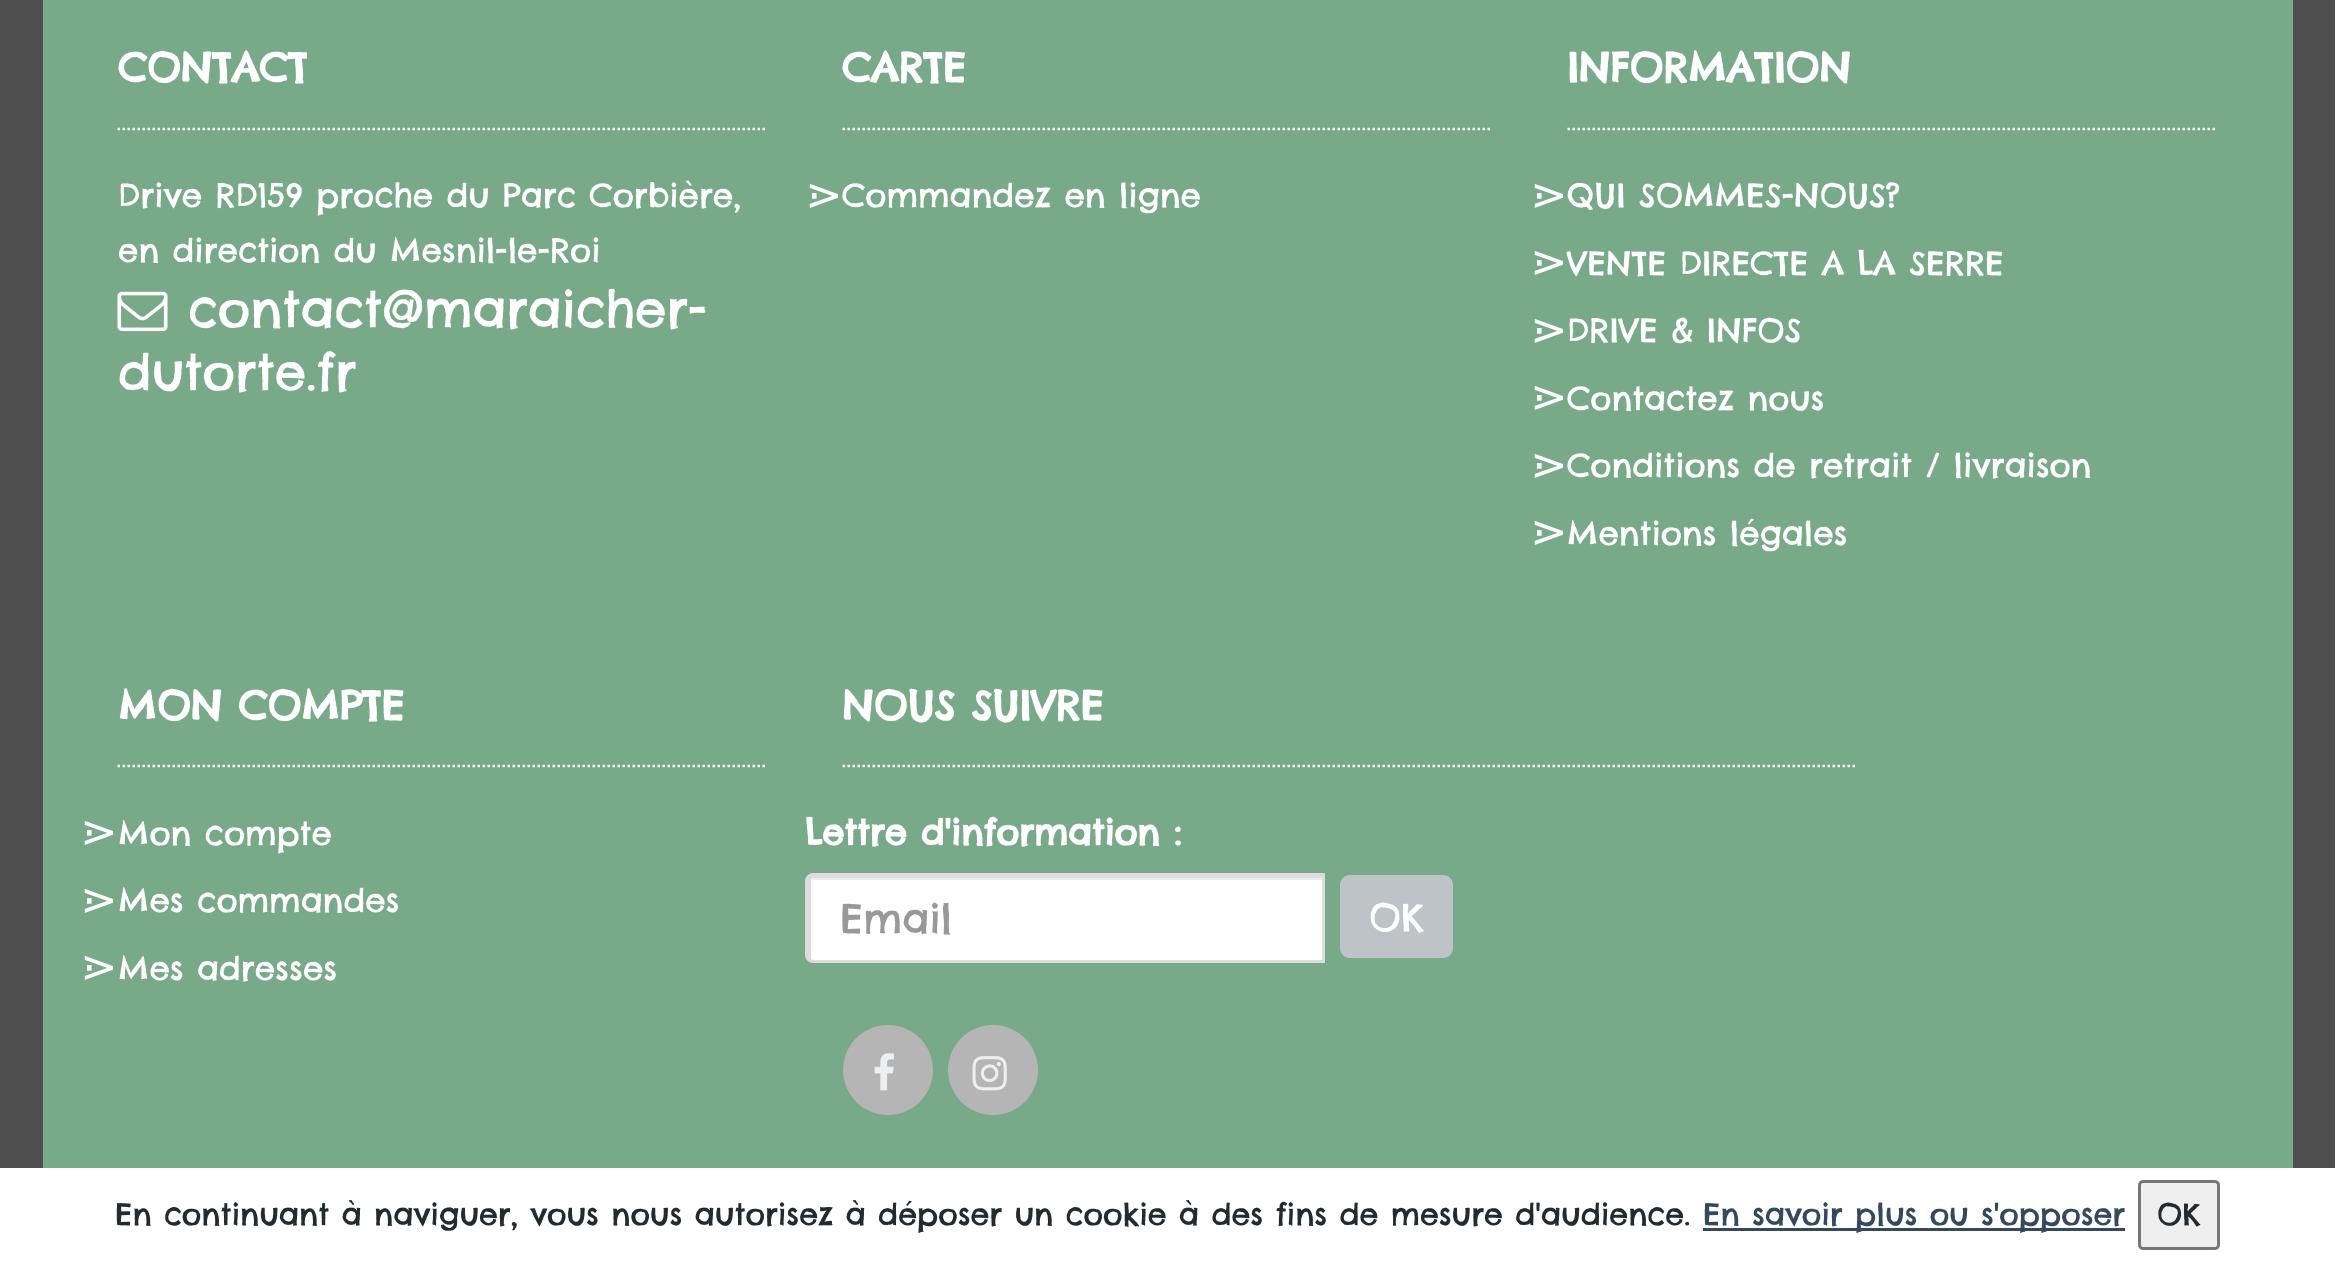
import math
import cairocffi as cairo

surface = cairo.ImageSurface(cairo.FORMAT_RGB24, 2335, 1263)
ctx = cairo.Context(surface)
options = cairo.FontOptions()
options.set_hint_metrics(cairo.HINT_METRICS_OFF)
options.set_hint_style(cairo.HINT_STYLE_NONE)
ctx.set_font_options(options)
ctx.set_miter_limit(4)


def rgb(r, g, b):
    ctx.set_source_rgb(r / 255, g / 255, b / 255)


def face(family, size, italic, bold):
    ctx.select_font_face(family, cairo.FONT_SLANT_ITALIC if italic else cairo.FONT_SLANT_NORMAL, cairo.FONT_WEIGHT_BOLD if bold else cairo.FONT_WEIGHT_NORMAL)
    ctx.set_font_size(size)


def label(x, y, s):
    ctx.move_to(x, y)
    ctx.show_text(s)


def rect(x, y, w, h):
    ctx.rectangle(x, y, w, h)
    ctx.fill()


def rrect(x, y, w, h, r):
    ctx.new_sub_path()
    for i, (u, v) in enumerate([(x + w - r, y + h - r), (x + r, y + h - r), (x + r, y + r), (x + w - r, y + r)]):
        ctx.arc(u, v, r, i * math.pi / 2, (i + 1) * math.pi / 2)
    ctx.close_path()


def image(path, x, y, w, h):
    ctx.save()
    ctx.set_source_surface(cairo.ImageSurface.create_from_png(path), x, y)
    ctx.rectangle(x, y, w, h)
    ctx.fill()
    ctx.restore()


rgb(78, 78, 78)
ctx.paint()
rgb(120, 169, 137)
rect(43, 0, 2250, 1168)
ctx.new_path()
ctx.move_to(117.5, 129)
ctx.line_to(767.5, 129)
rgb(255, 255, 255)
ctx.set_line_width(2.5)
ctx.set_dash([2.5, 2.5])
ctx.stroke()
face('Chelsea Market', 40, 0, 1)
label(118, 82, 'CONTACT')
face('Chelsea Market', 32.5, 0, 0)
label(118, 207, 'Drive RD159 proche du Parc Corbière,')
label(118, 262, 'en direction du Mesnil-le-Roi')
image('image0.png', 117, 291, 51, 41)
face('Chelsea Market', 50, 0, 0)
label(188, 327, 'contact@maraicher-')
label(118, 390, 'dutorte.fr')
ctx.new_path()
ctx.move_to(842.5, 129)
ctx.line_to(1492.5, 129)
ctx.stroke()
face('Chelsea Market', 40, 0, 1)
label(842, 82, 'CARTE')
face('DejaVu Sans', 45, 0, 0)
label(805, 210, '⋗')
face('Chelsea Market', 32.5, 0, 0)
label(842, 207, 'Commandez en ligne')
ctx.new_path()
ctx.move_to(1567.5, 129)
ctx.line_to(2217.5, 129)
ctx.stroke()
face('Chelsea Market', 40, 0, 1)
label(1567, 82, 'INFORMATION')
face('DejaVu Sans', 45, 0, 0)
label(1530, 210, '⋗')
face('Chelsea Market', 32.5, 0, 0)
label(1567, 207, 'QUI SOMMES-NOUS?')
face('DejaVu Sans', 45, 0, 0)
label(1530, 277, '⋗')
face('Chelsea Market', 32.5, 0, 0)
label(1567, 275, 'VENTE DIRECTE A LA SERRE')
face('DejaVu Sans', 45, 0, 0)
label(1530, 345, '⋗')
face('Chelsea Market', 32.5, 0, 0)
label(1567, 342, 'DRIVE & INFOS')
face('DejaVu Sans', 45, 0, 0)
label(1530, 412, '⋗')
face('Chelsea Market', 32.5, 0, 0)
label(1567, 410, 'Contactez nous')
face('DejaVu Sans', 45, 0, 0)
label(1530, 480, '⋗')
face('Chelsea Market', 32.5, 0, 0)
label(1567, 477, 'Conditions de retrait / livraison')
face('DejaVu Sans', 45, 0, 0)
label(1530, 547, '⋗')
face('Chelsea Market', 32.5, 0, 0)
label(1567, 545, 'Mentions légales')
ctx.new_path()
ctx.move_to(117.5, 766)
ctx.line_to(767.5, 766)
ctx.stroke()
face('Chelsea Market', 40, 0, 1)
label(118, 720, 'MON COMPTE')
face('DejaVu Sans', 45, 0, 0)
label(80, 847, '⋗')
face('Chelsea Market', 32.5, 0, 0)
label(118, 845, 'Mon compte')
face('DejaVu Sans', 45, 0, 0)
label(80, 915, '⋗')
face('Chelsea Market', 32.5, 0, 0)
label(118, 912, 'Mes commandes')
face('DejaVu Sans', 45, 0, 0)
label(80, 982, '⋗')
face('Chelsea Market', 32.5, 0, 0)
label(118, 980, 'Mes adresses')
ctx.new_path()
ctx.move_to(842.5, 766)
ctx.line_to(1855, 766)
ctx.stroke()
face('Chelsea Market', 40, 0, 1)
label(842, 720, 'NOUS SUIVRE')
face('Chelsea Market', 35, 0, 1)
label(805, 845, 'Lettre d\'information :')
ctx.new_path()
ctx.move_to(812, 878)
ctx.line_to(1322, 878)
ctx.line_to(1322, 960)
ctx.line_to(812, 960)
ctx.curve_to(811, 960, 810, 958, 810, 955)
ctx.line_to(810, 880)
ctx.curve_to(810, 879, 811, 878, 812, 878)
ctx.close_path()
ctx.fill()
ctx.set_source_rgba(0, 0, 0, 0.07)
ctx.new_path()
ctx.move_to(812, 880)
ctx.line_to(1322, 880)
ctx.line_to(1322, 960)
ctx.line_to(1322, 878)
ctx.line_to(812, 878)
ctx.line_to(810, 879)
ctx.line_to(810, 882)
ctx.curve_to(810, 881, 811, 880, 812, 880)
ctx.close_path()
ctx.fill()
ctx.new_path()
ctx.move_to(813, 874.5)
ctx.line_to(1323.5, 874.5)
ctx.line_to(1323.5, 961.5)
ctx.line_to(813, 961.5)
ctx.curve_to(809.5, 961.5, 806.5, 958.5, 806.5, 955)
ctx.line_to(806.5, 881)
ctx.curve_to(806.5, 877.5, 809.5, 874.5, 813, 874.5)
ctx.close_path()
rgb(221, 221, 221)
ctx.set_line_width(3)
ctx.set_dash([])
ctx.stroke()
rect(810, 876, 515, 2)
rect(808, 878, 3, 82)
face('Chelsea Market', 40, 0, 0)
rgb(153, 153, 153)
label(840, 933, 'Email')
rgb(189, 195, 199)
rrect(1340, 875, 113, 83, 10)
ctx.fill()
face('Chelsea Market', 38, 0, 0)
rgb(255, 255, 255)
label(1369, 931, 'OK')
rgb(181, 181, 181)
ctx.new_path()
ctx.arc(888, 1070, 42.5, 0, 2 * math.pi)
ctx.fill_preserve()
ctx.set_line_width(5)
ctx.stroke()
image('image1.png', 874, 1053, 20, 38)
ctx.arc(993, 1070, 42.5, 0, 2 * math.pi)
ctx.fill_preserve()
ctx.stroke()
image('image2.png', 972, 1056, 35, 35)
rgb(255, 255, 255)
rect(0, 1168, 2335, 95)
face('Chelsea Market', 30, 0, 0)
rgb(37, 42, 47)
label(115, 1225, 'En continuant à naviguer, vous nous autorisez à déposer un cookie à des fins de mesure d\'audience.')
rgb(52, 73, 94)
rect(1703, 1228, 422, 3)
label(1703, 1225, 'En savoir plus ou s\'opposer')
rgb(239, 239, 239)
rrect(2139.5, 1181.5, 79, 67, 3.5)
ctx.fill_preserve()
rgb(118, 118, 118)
ctx.set_line_width(3)
ctx.stroke()
rgb(37, 42, 47)
label(2157, 1225, 'OK')
surface.write_to_png('render.png')
